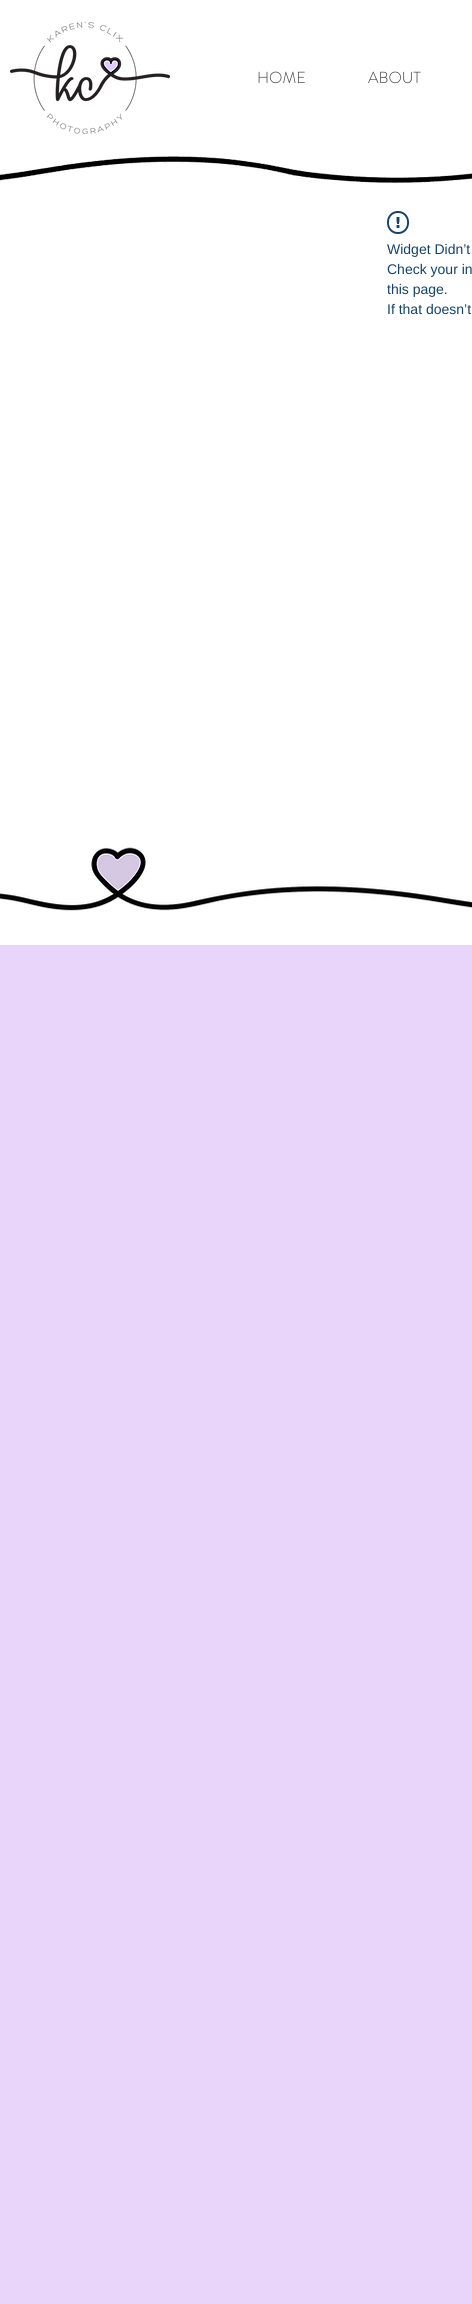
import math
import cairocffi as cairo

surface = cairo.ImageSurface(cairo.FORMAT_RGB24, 472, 2304)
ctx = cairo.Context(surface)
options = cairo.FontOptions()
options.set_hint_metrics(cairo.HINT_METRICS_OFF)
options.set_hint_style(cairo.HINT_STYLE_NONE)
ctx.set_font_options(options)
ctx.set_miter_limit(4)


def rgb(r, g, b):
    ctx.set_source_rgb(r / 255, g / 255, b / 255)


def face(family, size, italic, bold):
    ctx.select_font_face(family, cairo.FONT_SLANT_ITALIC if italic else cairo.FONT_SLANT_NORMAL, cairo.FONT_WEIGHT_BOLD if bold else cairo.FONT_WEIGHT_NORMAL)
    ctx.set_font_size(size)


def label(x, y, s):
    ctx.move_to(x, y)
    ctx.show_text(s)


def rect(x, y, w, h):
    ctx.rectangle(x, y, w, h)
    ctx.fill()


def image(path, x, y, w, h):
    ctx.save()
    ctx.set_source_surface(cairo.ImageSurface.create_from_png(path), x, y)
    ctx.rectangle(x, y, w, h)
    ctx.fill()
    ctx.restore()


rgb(233, 212, 250)
ctx.paint()
rgb(255, 255, 255)
rect(0, 0, 472, 945)
image('image0.png', 10, 22, 160, 112)
face('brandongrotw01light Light', 16, 0, 0)
rgb(65, 65, 65)
label(257, 83, 'HOME')
label(368, 83, 'ABOUT')
image('image1.png', 0, 156, 472, 27)
image('image2.png', 387, 211, 22, 23)
face('Liberation Sans', 14, 0, 0)
rgb(23, 65, 101)
label(387, 254, 'Widget Didn’t')
label(387, 274, 'Check your in')
label(387, 294, 'this page.')
label(387, 314, 'If that doesn’t')
image('image3.png', 0, 847, 472, 64)
surface.write_to_png('render.png')
